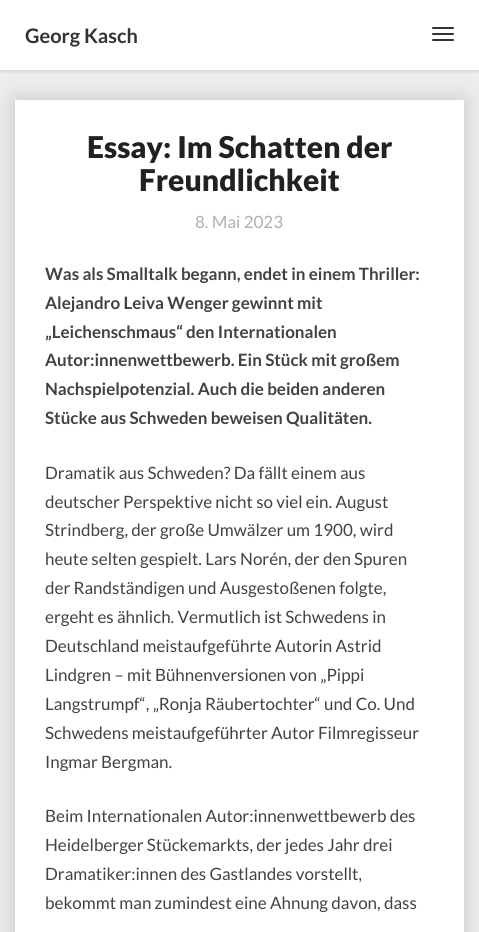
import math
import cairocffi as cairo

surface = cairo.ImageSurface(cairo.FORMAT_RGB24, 479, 932)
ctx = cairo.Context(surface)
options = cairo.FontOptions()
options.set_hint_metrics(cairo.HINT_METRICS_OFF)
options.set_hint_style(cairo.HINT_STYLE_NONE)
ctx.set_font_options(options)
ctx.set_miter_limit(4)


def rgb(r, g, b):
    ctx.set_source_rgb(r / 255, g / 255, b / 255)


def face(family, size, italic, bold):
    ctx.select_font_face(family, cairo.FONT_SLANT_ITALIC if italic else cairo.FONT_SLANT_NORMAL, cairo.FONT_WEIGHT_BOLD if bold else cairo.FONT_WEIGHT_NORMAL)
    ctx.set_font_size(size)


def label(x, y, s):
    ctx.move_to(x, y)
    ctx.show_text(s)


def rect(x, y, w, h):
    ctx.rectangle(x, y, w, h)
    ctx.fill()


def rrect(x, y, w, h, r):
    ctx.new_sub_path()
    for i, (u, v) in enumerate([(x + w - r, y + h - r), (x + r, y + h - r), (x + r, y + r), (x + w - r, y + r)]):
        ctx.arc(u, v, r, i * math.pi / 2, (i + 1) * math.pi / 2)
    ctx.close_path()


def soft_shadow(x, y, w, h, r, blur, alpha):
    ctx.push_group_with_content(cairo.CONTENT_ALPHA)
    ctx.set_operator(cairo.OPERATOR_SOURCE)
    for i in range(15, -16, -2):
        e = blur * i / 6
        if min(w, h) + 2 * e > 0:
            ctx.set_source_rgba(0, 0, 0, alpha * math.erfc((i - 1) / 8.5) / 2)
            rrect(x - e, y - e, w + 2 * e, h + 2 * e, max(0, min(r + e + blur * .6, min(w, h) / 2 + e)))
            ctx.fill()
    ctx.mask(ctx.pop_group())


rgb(238, 238, 238)
ctx.paint()
rgb(0, 0, 0)
soft_shadow(15, 100, 449, 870, 0, 12.5, 0.17)
rgb(255, 255, 255)
rect(0, 0, 479, 70)
ctx.save()
ctx.rectangle(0, 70, 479, 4)
ctx.clip()
rgb(0, 0, 0)
soft_shadow(0, 2, 479, 70, 0, 2, 0.1)
ctx.restore()
face('Lato', 20, 0, 1)
rgb(51, 51, 51)
label(25, 43, 'Georg Kasch')
rrect(432, 27, 22, 2, 1)
ctx.fill()
rrect(432, 33, 22, 2, 1)
ctx.fill()
rrect(432, 39, 22, 2, 1)
ctx.fill()
rgb(255, 255, 255)
rect(15, 100, 449, 832)
face('Lato Black', 30, 0, 0)
rgb(33, 33, 33)
label(87, 158, 'Essay: Im Schatten der')
label(139, 191, 'Freundlichkeit')
face('Lato', 17, 0, 0)
rgb(175, 175, 175)
label(195, 228, '8. Mai 2023')
face('Lato', 17, 0, 1)
rgb(66, 66, 66)
label(45, 280, 'Was als Smalltalk begann, endet in einem Thriller:')
label(45, 309, 'Alejandro Leiva Wenger gewinnt mit')
label(45, 338, '„Leichenschmaus“ den Internationalen')
label(45, 366, 'Autor:innenwettbewerb. Ein Stück mit großem')
label(45, 395, 'Nachspielpotenzial. Auch die beiden anderen')
label(45, 424, 'Stücke aus Schweden beweisen Qualitäten.')
face('Lato', 17, 0, 0)
label(45, 479, 'Dramatik aus Schweden? Da fällt einem aus')
label(45, 508, 'deutscher Perspektive nicht so viel ein. August')
label(45, 536, 'Strindberg, der große Umwälzer um 1900, wird')
label(45, 565, 'heute selten gespielt. Lars Norén, der den Spuren')
label(45, 594, 'der Randständigen und Ausgestoßenen folgte,')
label(45, 623, 'ergeht es ähnlich. Vermutlich ist Schwedens in')
label(45, 652, 'Deutschland meistaufgeführte Autorin Astrid')
label(45, 681, 'Lindgren – mit Bühnenversionen von „Pippi')
label(45, 710, 'Langstrumpf“, „Ronja Räubertochter“ und Co. Und')
label(45, 739, 'Schwedens meistaufgeführter Autor Filmregisseur')
label(45, 768, 'Ingmar Bergman.')
label(45, 822, 'Beim Internationalen Autor:innenwettbewerb des')
label(45, 851, 'Heidelberger Stückemarkts, der jedes Jahr drei')
label(45, 880, 'Dramatiker:innen des Gastlandes vorstellt,')
label(45, 909, 'bekommt man zumindest eine Ahnung davon, dass')
surface.write_to_png('render.png')
